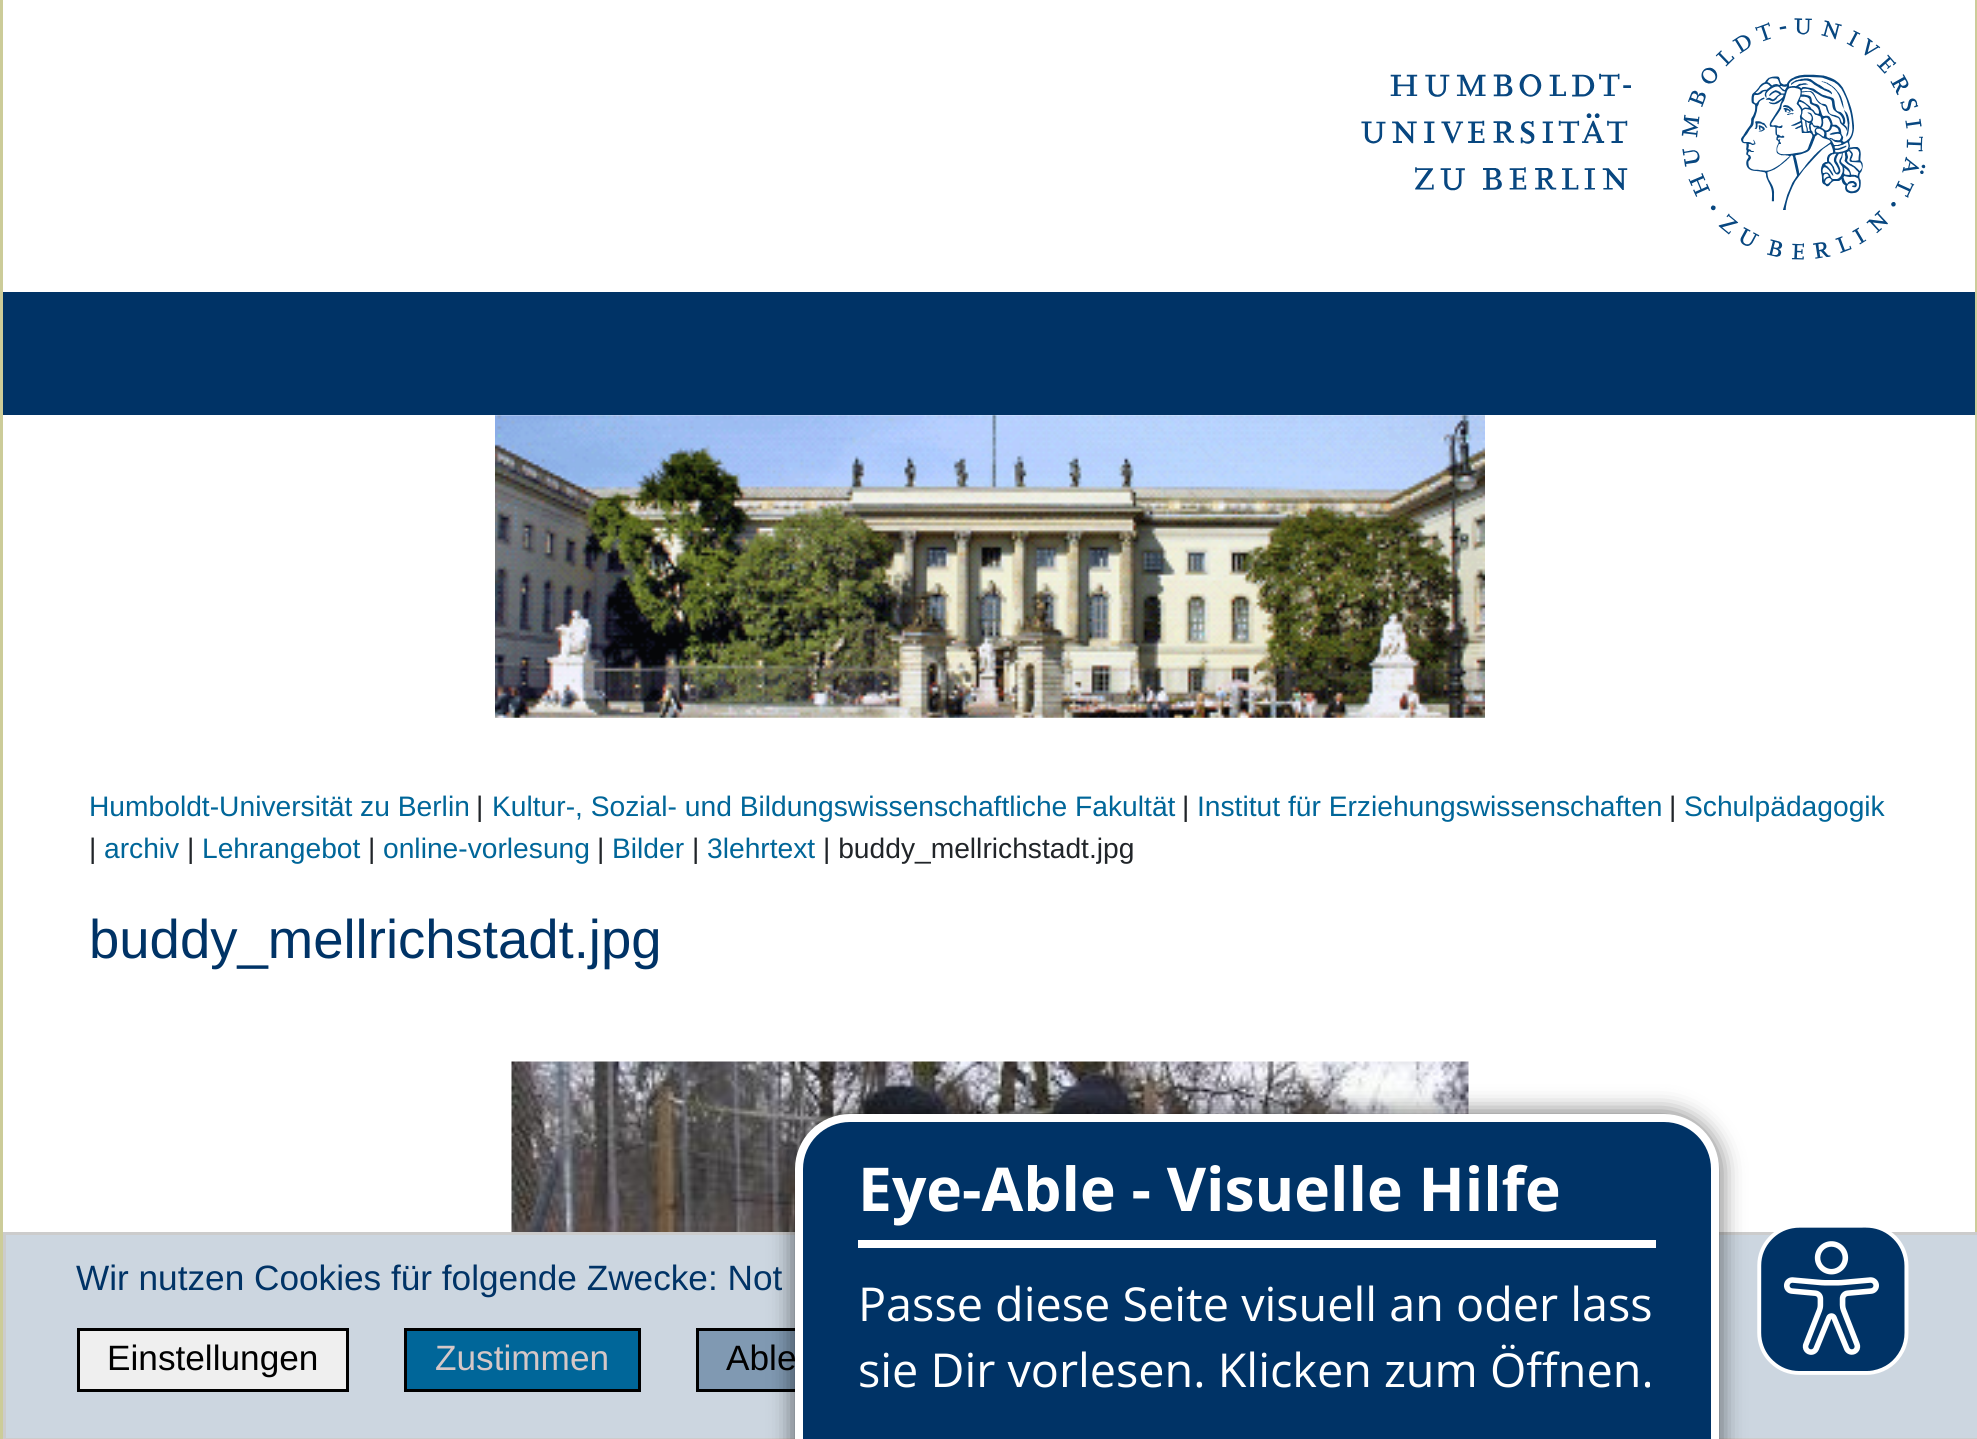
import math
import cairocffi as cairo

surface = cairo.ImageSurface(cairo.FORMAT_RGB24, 1977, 1439)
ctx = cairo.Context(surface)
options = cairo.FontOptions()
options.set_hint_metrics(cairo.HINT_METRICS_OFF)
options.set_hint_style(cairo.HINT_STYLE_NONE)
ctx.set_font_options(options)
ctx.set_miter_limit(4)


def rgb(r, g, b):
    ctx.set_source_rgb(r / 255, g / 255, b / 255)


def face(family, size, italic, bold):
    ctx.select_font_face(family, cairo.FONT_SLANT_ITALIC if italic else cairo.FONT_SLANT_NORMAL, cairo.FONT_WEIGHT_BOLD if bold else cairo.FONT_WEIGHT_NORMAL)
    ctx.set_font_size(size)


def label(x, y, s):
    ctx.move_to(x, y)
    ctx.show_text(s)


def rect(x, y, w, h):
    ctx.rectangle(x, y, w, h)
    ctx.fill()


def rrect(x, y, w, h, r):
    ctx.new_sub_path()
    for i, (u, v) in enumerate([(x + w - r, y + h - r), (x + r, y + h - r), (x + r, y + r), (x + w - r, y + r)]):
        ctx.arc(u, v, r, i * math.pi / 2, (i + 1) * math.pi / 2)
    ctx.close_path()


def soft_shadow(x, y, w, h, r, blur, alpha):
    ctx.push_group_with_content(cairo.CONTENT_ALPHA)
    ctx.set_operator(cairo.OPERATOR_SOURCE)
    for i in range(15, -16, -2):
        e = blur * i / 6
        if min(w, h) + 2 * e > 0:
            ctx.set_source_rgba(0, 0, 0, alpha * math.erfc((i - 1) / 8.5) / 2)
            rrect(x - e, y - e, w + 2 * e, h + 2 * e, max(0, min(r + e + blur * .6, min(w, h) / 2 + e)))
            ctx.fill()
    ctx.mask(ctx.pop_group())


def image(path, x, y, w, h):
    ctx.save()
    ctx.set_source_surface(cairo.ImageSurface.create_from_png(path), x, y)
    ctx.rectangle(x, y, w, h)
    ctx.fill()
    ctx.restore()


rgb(255, 255, 255)
ctx.paint()
image('image0.png', 1361, 18, 565, 242)
rgb(0, 51, 102)
rect(3, 292, 1972, 123)
image('image1.png', 495, 415, 990, 303)
rgb(204, 204, 153)
rect(1975, 0, 2, 1232)
rect(0, 0, 3, 1439)
face('Liberation Sans', 28.2, 0, 0)
rgb(0, 102, 153)
label(89, 816, 'Humboldt-Universität zu Berlin')
rgb(33, 37, 41)
label(476, 816, '|')
rgb(0, 102, 153)
label(492, 816, 'Kultur-, Sozial- und Bildungswissenschaftliche Fakultät')
rgb(33, 37, 41)
label(1182, 816, '|')
rgb(0, 102, 153)
label(1197, 816, 'Institut für Erziehungswissenschaften')
rgb(33, 37, 41)
label(1669, 816, '|')
rgb(0, 102, 153)
label(1684, 816, 'Schulpädagogik')
rgb(33, 37, 41)
label(89, 858, '|')
rgb(0, 102, 153)
label(104, 858, 'archiv')
rgb(33, 37, 41)
label(187, 858, '|')
rgb(0, 102, 153)
label(202, 858, 'Lehrangebot')
rgb(33, 37, 41)
label(368, 858, '|')
rgb(0, 102, 153)
label(383, 858, 'online-vorlesung')
rgb(33, 37, 41)
label(597, 858, '|')
rgb(0, 102, 153)
label(612, 858, 'Bilder')
rgb(33, 37, 41)
label(692, 858, '|')
rgb(0, 102, 153)
label(707, 858, '3lehrtext')
rgb(33, 37, 41)
label(823, 858, '| buddy_mellrichstadt.jpg')
face('Liberation Sans', 54.5, 0, 0)
rgb(0, 51, 102)
label(89, 958, 'buddy_mellrichstadt.jpg')
image('image2.png', 511, 1061, 958, 171)
rgb(204, 214, 224)
ctx.rectangle(4.5, 1233.5, 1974, 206)
ctx.fill_preserve()
rgb(204, 204, 204)
ctx.set_line_width(3)
ctx.stroke()
face('Liberation Sans', 35.2, 0, 0)
rgb(0, 51, 102)
label(76, 1290, 'Wir nutzen Cookies für folgende Zwecke: Not')
rgb(239, 239, 239)
ctx.rectangle(78.5, 1329.5, 269, 61)
ctx.fill_preserve()
rgb(0, 0, 0)
ctx.stroke()
label(107, 1370, 'Einstellungen')
rgb(0, 102, 153)
ctx.rectangle(405.5, 1329.5, 234, 61)
ctx.fill_preserve()
rgb(0, 0, 0)
ctx.stroke()
rgb(213, 199, 199)
label(435, 1370, 'Zustimmen')
rgb(128, 153, 178)
rect(699, 1331, 96, 58)
ctx.rectangle(697.5, 1329.5, 206, 61)
rgb(0, 0, 0)
ctx.stroke()
label(726, 1370, 'Able')
rgb(0, 0, 0)
soft_shadow(792, 1111, 930, 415, 58, 11, 0.5)
rgb(0, 51, 102)
rrect(799, 1118, 916, 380, 51)
ctx.fill_preserve()
rgb(255, 255, 255)
ctx.set_line_width(8)
ctx.stroke()
rect(858, 1240, 798, 8)
face('Open Sans', 60.5, 0, 1)
label(858, 1211, 'Eye-Able - Visuelle Hilfe')
face('Open Sans', 46.75, 0, 0)
label(858, 1321, 'Passe diese Seite visuell an oder lass')
label(858, 1387, 'sie Dir vorlesen. Klicken zum Öffnen.')
image('image3.png', 1757, 1227, 152, 148)
surface.write_to_png('render.png')
